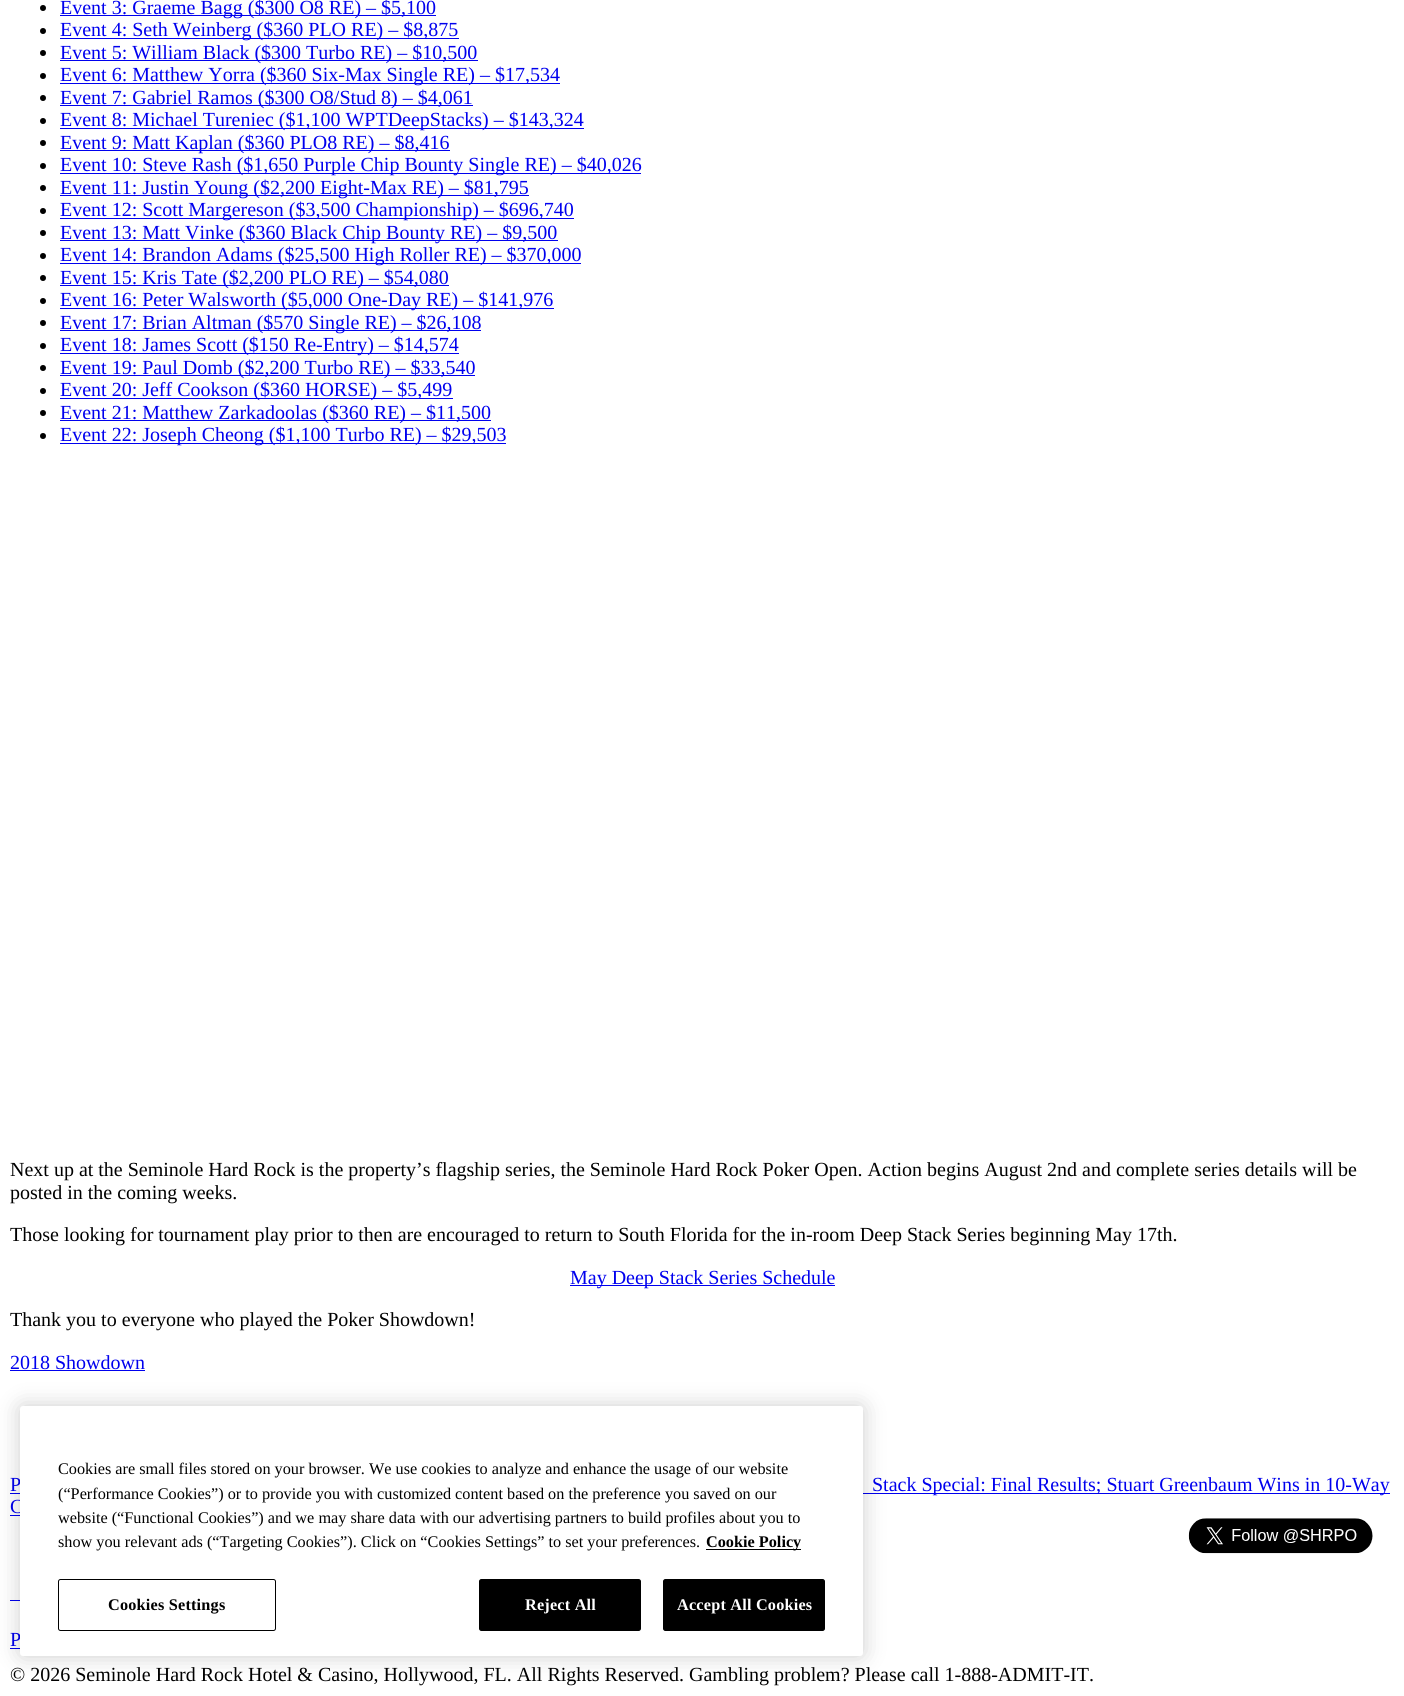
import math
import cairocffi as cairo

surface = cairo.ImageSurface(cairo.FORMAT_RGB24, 1404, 1696)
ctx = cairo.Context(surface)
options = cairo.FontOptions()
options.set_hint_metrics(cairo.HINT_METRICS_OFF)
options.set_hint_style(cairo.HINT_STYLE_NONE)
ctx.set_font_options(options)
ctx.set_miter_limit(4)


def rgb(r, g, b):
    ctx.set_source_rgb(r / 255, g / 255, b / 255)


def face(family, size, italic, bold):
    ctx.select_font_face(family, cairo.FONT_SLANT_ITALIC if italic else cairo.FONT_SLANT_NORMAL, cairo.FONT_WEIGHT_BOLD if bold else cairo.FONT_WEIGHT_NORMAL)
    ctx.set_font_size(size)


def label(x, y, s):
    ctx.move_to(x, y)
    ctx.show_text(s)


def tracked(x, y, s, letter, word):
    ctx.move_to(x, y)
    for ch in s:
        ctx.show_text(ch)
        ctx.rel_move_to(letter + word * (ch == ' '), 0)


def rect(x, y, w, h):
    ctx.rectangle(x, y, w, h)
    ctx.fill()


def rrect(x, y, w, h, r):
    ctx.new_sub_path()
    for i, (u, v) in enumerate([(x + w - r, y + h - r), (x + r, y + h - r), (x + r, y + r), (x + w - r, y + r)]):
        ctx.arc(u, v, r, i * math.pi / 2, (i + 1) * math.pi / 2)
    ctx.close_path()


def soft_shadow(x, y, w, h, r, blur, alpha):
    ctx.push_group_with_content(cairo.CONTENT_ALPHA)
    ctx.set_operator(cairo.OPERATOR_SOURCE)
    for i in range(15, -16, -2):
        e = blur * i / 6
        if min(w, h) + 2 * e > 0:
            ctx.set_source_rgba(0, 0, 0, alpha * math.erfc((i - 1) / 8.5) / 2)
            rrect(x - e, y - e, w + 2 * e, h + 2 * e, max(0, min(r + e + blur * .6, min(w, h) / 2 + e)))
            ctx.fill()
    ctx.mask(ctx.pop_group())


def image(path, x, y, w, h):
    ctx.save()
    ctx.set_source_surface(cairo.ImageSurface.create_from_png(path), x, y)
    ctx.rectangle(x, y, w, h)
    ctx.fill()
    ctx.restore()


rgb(255, 255, 255)
ctx.paint()
rgb(0, 0, 0)
ctx.arc(43, 8, 3, 0, 2 * math.pi)
ctx.fill()
rgb(0, 0, 238)
rect(60, 15, 376, 1)
face('Liberation Serif', 20, 0, 0)
label(60, 14, 'Event 3: Graeme Bagg ($300 O8 RE) – $5,100')
rgb(0, 0, 0)
ctx.new_path()
ctx.arc(43, 31, 3, 0, 2 * math.pi)
ctx.fill()
rgb(0, 0, 238)
rect(60, 38, 399, 1)
label(60, 36, 'Event 4: Seth Weinberg ($360 PLO RE) – $8,875')
rgb(0, 0, 0)
ctx.new_path()
ctx.arc(43, 53, 3, 0, 2 * math.pi)
ctx.fill()
rgb(0, 0, 238)
rect(60, 60, 418, 1)
label(60, 59, 'Event 5: William Black ($300 Turbo RE) – $10,500')
rgb(0, 0, 0)
ctx.new_path()
ctx.arc(43, 76, 3, 0, 2 * math.pi)
ctx.fill()
rgb(0, 0, 238)
rect(60, 83, 500, 1)
label(60, 81, 'Event 6: Matthew Yorra ($360 Six-Max Single RE) – $17,534')
rgb(0, 0, 0)
ctx.new_path()
ctx.arc(43, 98, 3, 0, 2 * math.pi)
ctx.fill()
rgb(0, 0, 238)
rect(60, 105, 413, 1)
label(60, 104, 'Event 7: Gabriel Ramos ($300 O8/Stud 8) – $4,061')
rgb(0, 0, 0)
ctx.new_path()
ctx.arc(43, 121, 3, 0, 2 * math.pi)
ctx.fill()
rgb(0, 0, 238)
rect(60, 128, 524, 1)
label(60, 126, 'Event 8: Michael Tureniec ($1,100 WPTDeepStacks) – $143,324')
rgb(0, 0, 0)
ctx.new_path()
ctx.arc(43, 143, 3, 0, 2 * math.pi)
ctx.fill()
rgb(0, 0, 238)
rect(60, 150, 390, 1)
label(60, 149, 'Event 9: Matt Kaplan ($360 PLO8 RE) – $8,416')
rgb(0, 0, 0)
ctx.new_path()
ctx.arc(43, 166, 3, 0, 2 * math.pi)
ctx.fill()
rgb(0, 0, 238)
rect(60, 173, 581, 1)
label(60, 171, 'Event 10: Steve Rash ($1,650 Purple Chip Bounty Single RE) – $40,026')
rgb(0, 0, 0)
ctx.new_path()
ctx.arc(43, 188, 3, 0, 2 * math.pi)
ctx.fill()
rgb(0, 0, 238)
rect(60, 195, 469, 1)
label(60, 194, 'Event 11: Justin Young ($2,200 Eight-Max RE) – $81,795')
rgb(0, 0, 0)
ctx.new_path()
ctx.arc(43, 211, 3, 0, 2 * math.pi)
ctx.fill()
rgb(0, 0, 238)
rect(60, 218, 514, 1)
label(60, 216, 'Event 12: Scott Margereson ($3,500 Championship) – $696,740')
rgb(0, 0, 0)
ctx.new_path()
ctx.arc(43, 233, 3, 0, 2 * math.pi)
ctx.fill()
rgb(0, 0, 238)
rect(60, 240, 498, 1)
label(60, 239, 'Event 13: Matt Vinke ($360 Black Chip Bounty RE) – $9,500')
rgb(0, 0, 0)
ctx.new_path()
ctx.arc(43, 256, 3, 0, 2 * math.pi)
ctx.fill()
rgb(0, 0, 238)
rect(60, 263, 521, 1)
label(60, 261, 'Event 14: Brandon Adams ($25,500 High Roller RE) – $370,000')
rgb(0, 0, 0)
ctx.new_path()
ctx.arc(43, 278, 3, 0, 2 * math.pi)
ctx.fill()
rgb(0, 0, 238)
rect(60, 285, 389, 1)
label(60, 284, 'Event 15: Kris Tate ($2,200 PLO RE) – $54,080')
rgb(0, 0, 0)
ctx.new_path()
ctx.arc(43, 301, 3, 0, 2 * math.pi)
ctx.fill()
rgb(0, 0, 238)
rect(60, 308, 494, 1)
label(60, 306, 'Event 16: Peter Walsworth ($5,000 One-Day RE) – $141,976')
rgb(0, 0, 0)
ctx.new_path()
ctx.arc(43, 323, 3, 0, 2 * math.pi)
ctx.fill()
rgb(0, 0, 238)
rect(60, 330, 421, 1)
label(60, 329, 'Event 17: Brian Altman ($570 Single RE) – $26,108')
rgb(0, 0, 0)
ctx.new_path()
ctx.arc(43, 346, 3, 0, 2 * math.pi)
ctx.fill()
rgb(0, 0, 238)
rect(60, 353, 399, 1)
label(60, 351, 'Event 18: James Scott ($150 Re-Entry) – $14,574')
rgb(0, 0, 0)
ctx.new_path()
ctx.arc(43, 368, 3, 0, 2 * math.pi)
ctx.fill()
rgb(0, 0, 238)
rect(60, 375, 415, 1)
label(60, 374, 'Event 19: Paul Domb ($2,200 Turbo RE) – $33,540')
rgb(0, 0, 0)
ctx.new_path()
ctx.arc(43, 391, 3, 0, 2 * math.pi)
ctx.fill()
rgb(0, 0, 238)
rect(60, 398, 393, 1)
label(60, 396, 'Event 20: Jeff Cookson ($360 HORSE) – $5,499')
rgb(0, 0, 0)
ctx.new_path()
ctx.arc(43, 413, 3, 0, 2 * math.pi)
ctx.fill()
rgb(0, 0, 238)
rect(60, 420, 431, 1)
label(60, 419, 'Event 21: Matthew Zarkadoolas ($360 RE) – $11,500')
rgb(0, 0, 0)
ctx.new_path()
ctx.arc(43, 436, 3, 0, 2 * math.pi)
ctx.fill()
rgb(0, 0, 238)
rect(60, 443, 446, 1)
label(60, 441, 'Event 22: Joseph Cheong ($1,100 Turbo RE) – $29,503')
rgb(0, 0, 0)
label(10, 1176, 'Next up at the Seminole Hard Rock is the property’s flagship series, the Seminole Hard Rock Poker Open. Action begins August 2nd and complete series details will be')
label(10, 1199, 'posted in the coming weeks.')
label(10, 1241, 'Those looking for tournament play prior to then are encouraged to return to South Florida for the in-room Deep Stack Series beginning May 17th.')
rgb(0, 0, 238)
rect(570, 1285, 265, 1)
label(570, 1284, 'May Deep Stack Series Schedule')
rgb(0, 0, 0)
label(10, 1326, 'Thank you to everyone who played the Poker Showdown!')
rgb(0, 0, 238)
label(10, 1369, '2018 Showdown')
rect(10, 1370, 135, 1)
label(10, 1491, 'P')
rect(10, 1493, 10, 1)
rect(863, 1493, 527, 1)
label(872, 1491, 'Stack Special: Final Results; Stuart Greenbaum Wins in 10-Way')
label(10, 1513, 'C')
rect(10, 1515, 10, 1)
image('image0.png', 1188, 1518, 185, 36)
rect(10, 1600, 10, 1)
label(10, 1646, 'P')
rect(10, 1648, 10, 1)
rgb(0, 0, 0)
label(10, 1681, '© 2026 Seminole Hard Rock Hotel & Casino, Hollywood, FL. All Rights Reserved. Gambling problem? Please call 1-888-ADMIT-IT.')
rgb(0, 0, 0)
soft_shadow(20, 1406, 843, 250, 3, 11, 0.2)
rgb(255, 255, 255)
rrect(20, 1406, 843, 250, 3)
ctx.fill()
face('Liberation Serif', 16.25, 0, 0)
rgb(0, 0, 0)
label(58, 1474, 'Cookies are small files stored on your browser. We use cookies to analyze and enhance the usage of our website')
label(58, 1499, '(“Performance Cookies”) or to provide you with customized content based on the preference you saved on our')
label(58, 1523, 'website (“Functional Cookies”) and we may share data with our advertising partners to build profiles about you to')
label(58, 1547, 'show you relevant ads (“Targeting Cookies”). Click on “Cookies Settings” to set your preferences.')
rect(706, 1549, 95, 1)
face('Liberation Serif', 16.25, 0, 1)
label(706, 1547, 'Cookie Policy')
rrect(58.5, 1579.5, 217, 51, 2)
ctx.set_line_width(1)
ctx.stroke()
tracked(108, 1610, 'Cookies Settings', 0.2, 0)
rrect(479.5, 1579.5, 161, 51, 2)
ctx.fill_preserve()
ctx.stroke()
rgb(255, 255, 255)
tracked(525, 1610, 'Reject All', 0.2, 0)
rgb(0, 0, 0)
rrect(663.5, 1579.5, 161, 51, 2)
ctx.fill_preserve()
ctx.stroke()
rgb(255, 255, 255)
tracked(677, 1610, 'Accept All Cookies', 0.2, 0)
surface.write_to_png('render.png')
